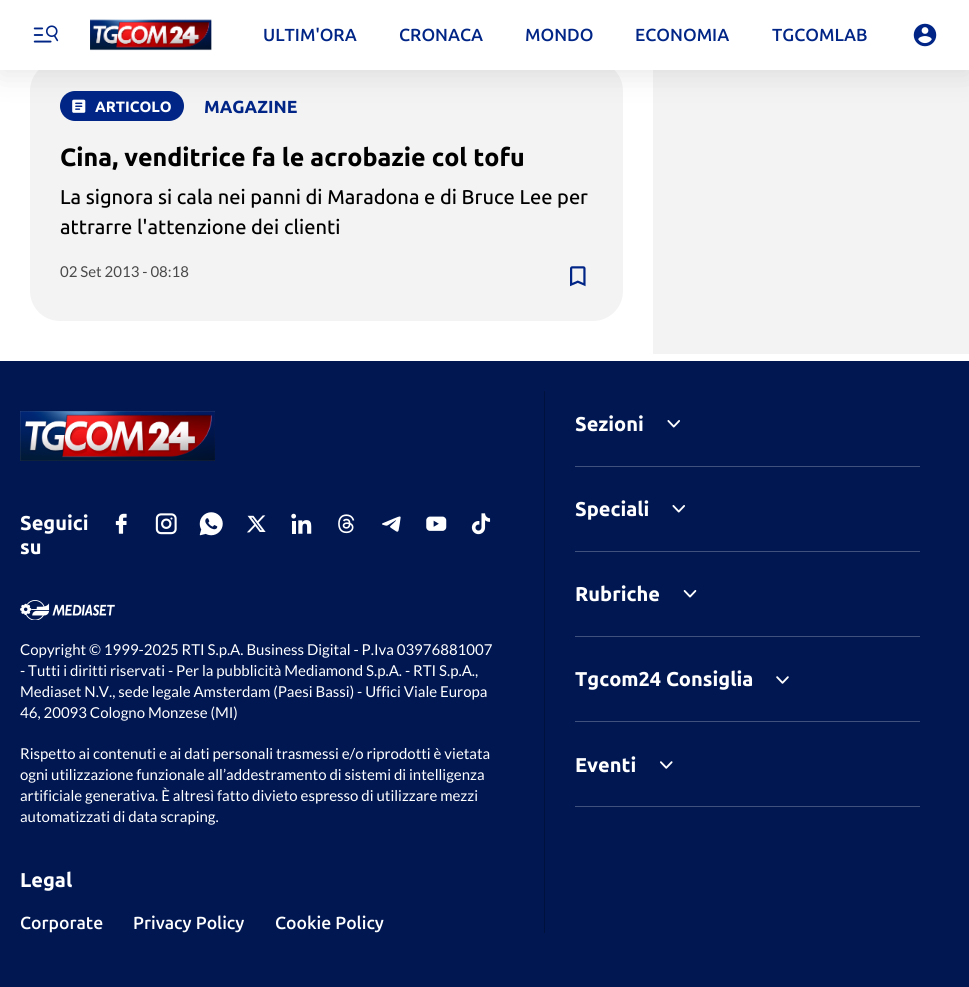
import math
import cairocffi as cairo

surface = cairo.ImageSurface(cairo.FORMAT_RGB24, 969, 987)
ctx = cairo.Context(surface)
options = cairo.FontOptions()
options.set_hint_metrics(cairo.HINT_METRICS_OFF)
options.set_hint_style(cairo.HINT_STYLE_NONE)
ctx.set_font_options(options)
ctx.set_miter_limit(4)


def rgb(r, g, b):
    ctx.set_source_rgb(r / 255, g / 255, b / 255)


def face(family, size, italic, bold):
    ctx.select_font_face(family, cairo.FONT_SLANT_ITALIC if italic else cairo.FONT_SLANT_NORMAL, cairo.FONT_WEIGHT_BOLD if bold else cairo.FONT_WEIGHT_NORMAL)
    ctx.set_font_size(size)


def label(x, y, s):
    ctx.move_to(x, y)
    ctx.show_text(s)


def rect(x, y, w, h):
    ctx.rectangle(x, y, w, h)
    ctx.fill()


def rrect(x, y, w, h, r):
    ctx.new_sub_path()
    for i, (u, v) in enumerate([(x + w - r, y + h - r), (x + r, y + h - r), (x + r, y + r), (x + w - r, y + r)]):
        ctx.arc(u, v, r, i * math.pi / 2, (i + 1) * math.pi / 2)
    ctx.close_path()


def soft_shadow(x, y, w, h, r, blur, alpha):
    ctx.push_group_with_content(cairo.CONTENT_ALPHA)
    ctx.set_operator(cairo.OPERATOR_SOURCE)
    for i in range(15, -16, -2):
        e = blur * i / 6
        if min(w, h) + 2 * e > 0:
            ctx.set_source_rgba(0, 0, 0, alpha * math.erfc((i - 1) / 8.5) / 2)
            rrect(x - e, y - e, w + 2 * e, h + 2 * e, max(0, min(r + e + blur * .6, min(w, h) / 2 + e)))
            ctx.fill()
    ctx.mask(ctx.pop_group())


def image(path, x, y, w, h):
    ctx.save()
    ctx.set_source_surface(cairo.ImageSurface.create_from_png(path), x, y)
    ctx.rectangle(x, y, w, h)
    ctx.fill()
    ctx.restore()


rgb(255, 255, 255)
ctx.paint()
rgb(243, 243, 243)
rrect(30, 61, 593, 260, 30)
ctx.fill()
rgb(0, 37, 134)
rrect(60, 91, 124, 30, 15)
ctx.fill()
image('image3.png', 72, 99, 14, 14)
rgb(243, 243, 243)
rect(653, 70, 316, 284)
rgb(51, 51, 51)
soft_shadow(0, 5, 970, 70, 0, 15, 0.12)
rgb(255, 255, 255)
rect(0, 0, 969, 70)
image('image0.png', 33, 25, 26, 18)
image('image1.png', 90, 19, 122, 32)
face('Ubuntu SemiBold', 17.5, 0, 0)
rgb(0, 37, 134)
label(263, 41, 'ULTIM\'ORA')
label(399, 41, 'CRONACA')
label(525, 41, 'MONDO')
label(635, 41, 'ECONOMIA')
label(772, 41, 'TGCOMLAB')
image('image2.png', 913, 23, 24, 24)
face('Ubuntu ExtraBold', 15, 0, 0)
rgb(255, 255, 255)
label(95, 112, 'ARTICOLO')
face('Ubuntu ExtraBold', 17.5, 0, 0)
rgb(0, 37, 134)
label(204, 113, 'MAGAZINE')
face('Ubuntu ExtraBold', 25, 0, 0)
rgb(0, 0, 0)
label(60, 166, 'Cina, venditrice fa le acrobazie col tofu')
face('Ubuntu Medium', 20, 0, 0)
label(60, 204, 'La signora si cala nei panni di Maradona e di Bruce Lee per')
label(60, 234, 'attrarre l\'attenzione dei clienti')
face('Lato', 15, 0, 0)
rgb(73, 73, 73)
label(60, 277, '02 Set 2013 - 08:18')
image('image4.png', 570, 266, 16, 21)
rgb(0, 23, 82)
rect(0, 361, 969, 626)
image('image5.png', 20, 411, 195, 50)
face('Ubuntu ExtraBold', 20, 0, 0)
rgb(255, 255, 255)
label(20, 530, 'Seguici')
label(20, 554, 'su')
image('image6.png', 115, 513, 12, 21)
image('image7.png', 155, 513, 22, 22)
image('image8.png', 199, 512, 24, 24)
image('image9.png', 247, 515, 19, 18)
image('image10.png', 291, 513, 21, 21)
image('image11.png', 338, 514, 17, 20)
image('image12.png', 382, 516, 19, 16)
image('image13.png', 426, 516, 21, 15)
image('image14.png', 471, 513, 20, 22)
image('image15.png', 20, 600, 95, 20)
face('Lato', 15, 0, 0)
label(20, 655, 'Copyright © 1999-2025 RTI S.p.A. Business Digital - P.Iva 03976881007')
label(20, 676, '- Tutti i diritti riservati - Per la pubblicità Mediamond S.p.A. - RTI S.p.A.,')
label(20, 697, 'Mediaset N.V., sede legale Amsterdam (Paesi Bassi) - Uffici Viale Europa')
label(20, 718, '46, 20093 Cologno Monzese (MI)')
label(20, 759, 'Rispetto ai contenuti e ai dati personali trasmessi e/o riprodotti è vietata')
label(20, 780, 'ogni utilizzazione funzionale all’addestramento di sistemi di intelligenza')
label(20, 801, 'artificiale generativa. È altresì fatto divieto espresso di utilizzare mezzi')
label(20, 822, 'automatizzati di data scraping.')
face('Ubuntu ExtraBold', 20, 0, 0)
label(20, 887, 'Legal')
face('Ubuntu SemiBold', 17.5, 0, 0)
label(20, 929, 'Corporate')
label(133, 929, 'Privacy Policy')
label(275, 929, 'Cookie Policy')
rgb(0, 17, 62)
rect(544, 391, 1, 542)
face('Ubuntu ExtraBold', 20, 0, 0)
rgb(255, 255, 255)
label(575, 431, 'Sezioni')
image('image16.png', 667, 420, 13, 8)
rgb(64, 81, 125)
rect(575, 466, 345, 1)
rgb(255, 255, 255)
label(575, 516, 'Speciali')
image('image16.png', 672, 505, 13, 8)
rgb(64, 81, 125)
rect(575, 551, 345, 1)
rgb(255, 255, 255)
label(575, 601, 'Rubriche')
image('image17.png', 683, 590, 14, 8)
rgb(64, 81, 125)
rect(575, 636, 345, 1)
rgb(255, 255, 255)
label(575, 686, 'Tgcom24 Consiglia')
image('image18.png', 776, 676, 13, 8)
rgb(64, 81, 125)
rect(575, 721, 345, 1)
rgb(255, 255, 255)
label(575, 772, 'Eventi')
image('image19.png', 660, 761, 13, 8)
rgb(64, 81, 125)
rect(575, 806, 345, 1)
surface.write_to_png('render.png')
